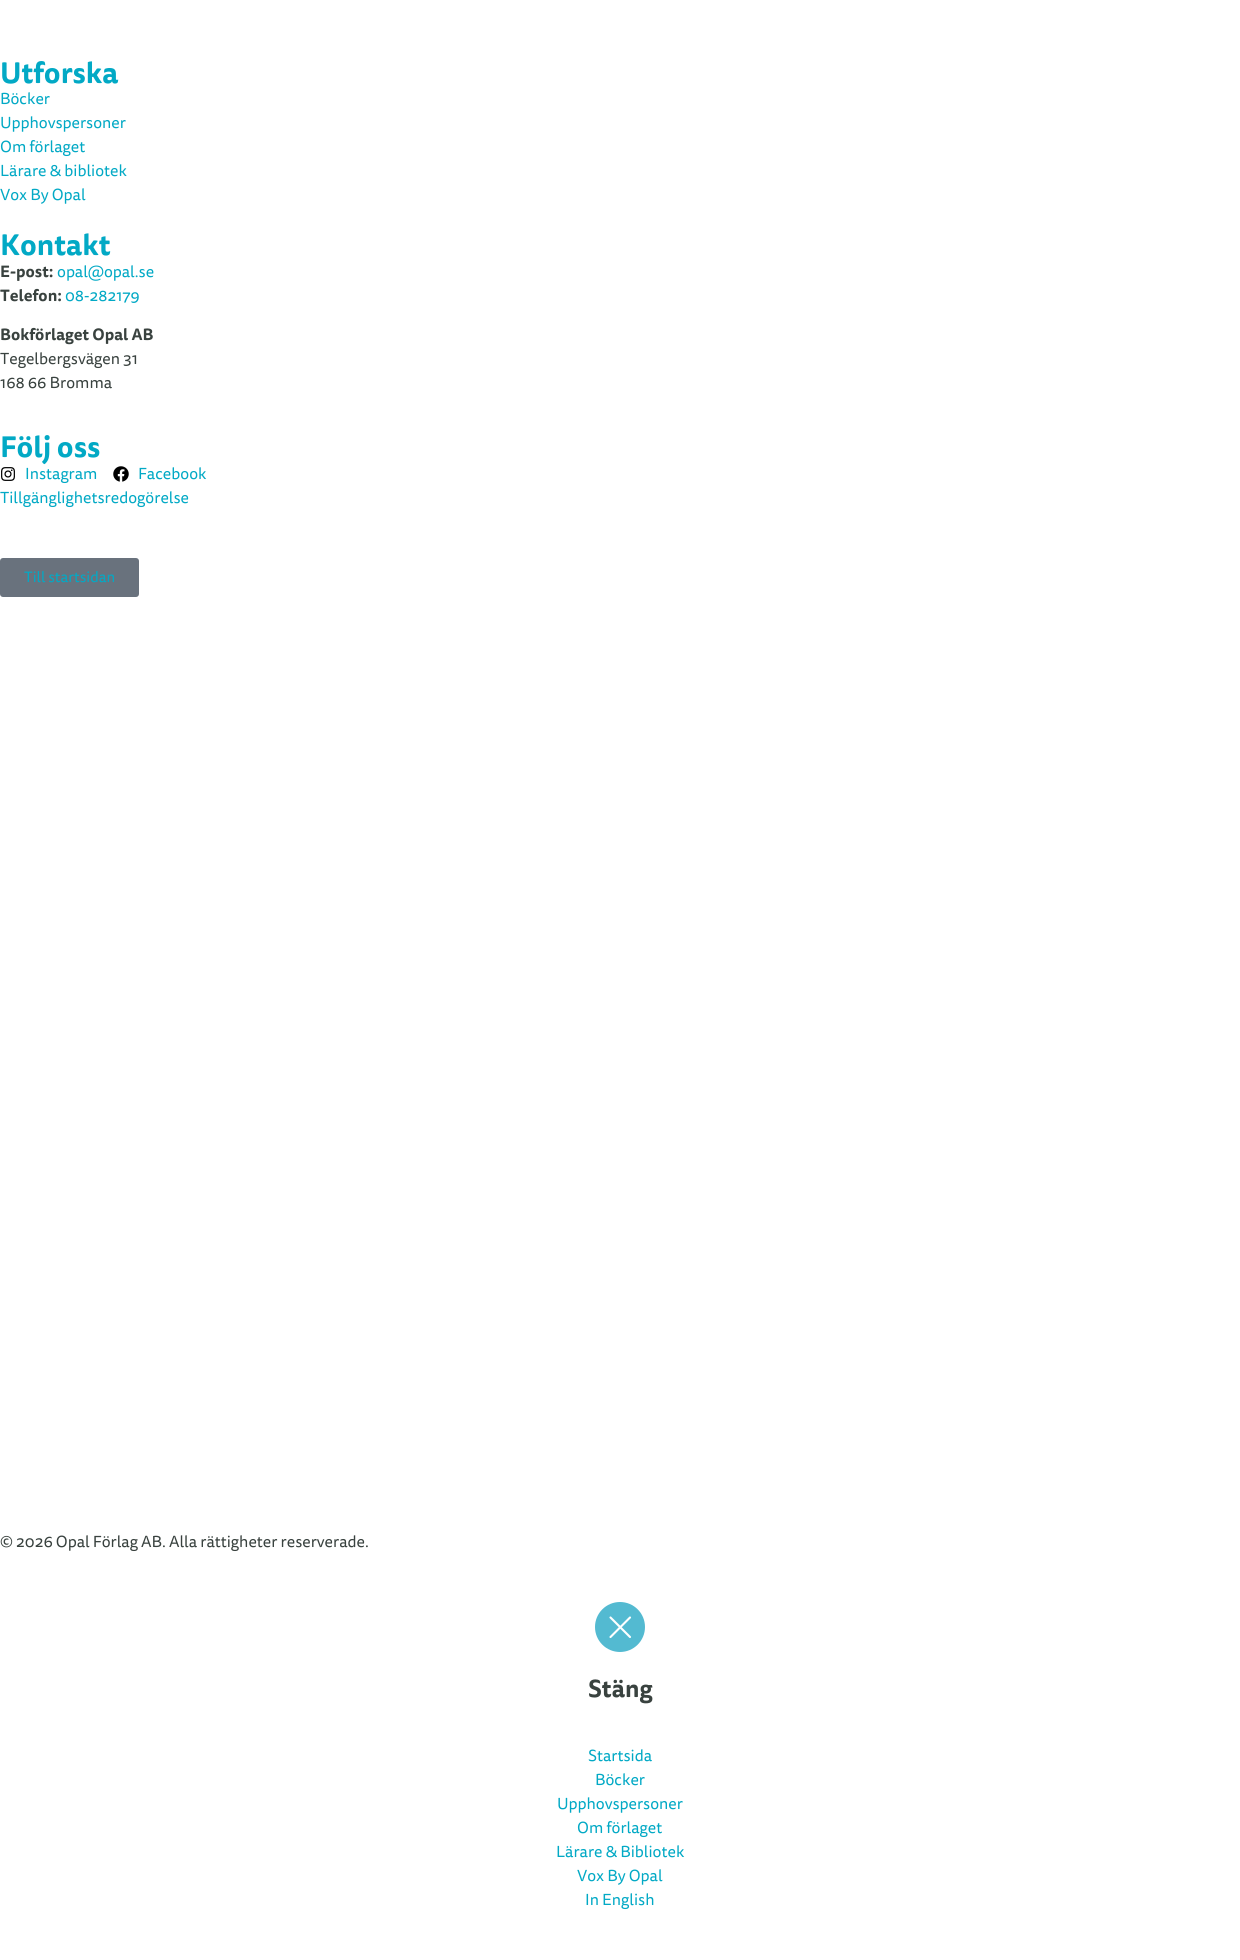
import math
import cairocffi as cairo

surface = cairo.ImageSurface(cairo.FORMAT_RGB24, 1240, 1960)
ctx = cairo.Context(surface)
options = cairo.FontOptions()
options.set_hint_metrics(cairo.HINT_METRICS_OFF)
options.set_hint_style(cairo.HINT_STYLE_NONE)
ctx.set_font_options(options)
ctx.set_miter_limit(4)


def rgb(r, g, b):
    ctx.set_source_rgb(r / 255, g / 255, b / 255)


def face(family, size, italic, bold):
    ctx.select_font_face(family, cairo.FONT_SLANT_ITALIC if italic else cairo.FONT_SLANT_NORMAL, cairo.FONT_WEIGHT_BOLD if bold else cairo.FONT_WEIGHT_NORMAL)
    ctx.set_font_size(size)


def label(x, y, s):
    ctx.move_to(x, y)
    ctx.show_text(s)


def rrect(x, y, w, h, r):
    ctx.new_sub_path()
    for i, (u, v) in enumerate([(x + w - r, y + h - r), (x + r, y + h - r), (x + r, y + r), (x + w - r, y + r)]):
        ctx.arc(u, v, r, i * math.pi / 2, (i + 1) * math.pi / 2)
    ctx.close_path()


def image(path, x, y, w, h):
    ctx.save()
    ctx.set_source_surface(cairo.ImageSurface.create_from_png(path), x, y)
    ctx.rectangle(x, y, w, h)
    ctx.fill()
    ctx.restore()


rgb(255, 255, 255)
ctx.paint()
face('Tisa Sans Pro', 29, 0, 1)
rgb(2, 169, 197)
label(0, 83, 'Utforska')
face('Tisa Sans Pro', 16, 0, 0)
label(0, 104, 'Böcker')
label(0, 128, 'Upphovspersoner')
label(0, 152, 'Om förlaget')
label(0, 176, 'Lärare & bibliotek')
label(0, 200, 'Vox By Opal')
face('Tisa Sans Pro', 29, 0, 1)
label(0, 255, 'Kontakt')
face('Tisa Sans Pro', 16, 0, 1)
rgb(57, 66, 63)
label(0, 277, 'E-post:')
face('Tisa Sans Pro', 16, 0, 0)
rgb(2, 169, 197)
label(57, 277, 'opal@opal.se')
face('Tisa Sans Pro', 16, 0, 1)
rgb(57, 66, 63)
label(0, 301, 'Telefon:')
face('Tisa Sans Pro', 16, 0, 0)
rgb(2, 169, 197)
label(65, 301, '08-282179')
face('Tisa Sans Pro', 16, 0, 1)
rgb(57, 66, 63)
label(0, 340, 'Bokförlaget Opal AB')
face('Tisa Sans Pro', 16, 0, 0)
label(0, 364, 'Tegelbergsvägen 31')
label(0, 388, '168 66 Bromma')
face('Tisa Sans Pro', 29, 0, 1)
rgb(2, 169, 197)
label(0, 457, 'Följ oss')
image('image0.png', 1, 467, 14, 14)
face('Tisa Sans Pro', 16, 0, 0)
label(25, 479, 'Instagram')
image('image1.png', 113, 466, 16, 16)
label(138, 479, 'Facebook')
label(0, 503, 'Tillgänglighetsredogörelse')
rgb(105, 114, 125)
rrect(0, 558, 139, 39, 3)
ctx.fill()
face('Tisa Sans Pro', 15, 0, 0)
rgb(2, 169, 197)
label(24, 582, 'Till startsidan')
face('Tisa Sans Pro', 16, 0, 0)
rgb(57, 66, 63)
label(0, 1547, '© 2026 Opal Förlag AB. Alla rättigheter reserverade.')
rgb(83, 186, 209)
ctx.new_path()
ctx.arc(620, 1627, 25, 0, 2 * math.pi)
ctx.fill()
ctx.new_path()
ctx.move_to(610.5, 1617.5)
ctx.line_to(630, 1637)
ctx.move_to(610.5, 1637)
ctx.line_to(630, 1617.5)
rgb(255, 255, 255)
ctx.set_line_width(2.1)
ctx.set_line_cap(cairo.LINE_CAP_ROUND)
ctx.set_line_join(cairo.LINE_JOIN_ROUND)
ctx.stroke()
face('Tisa Sans Pro', 24, 0, 1)
rgb(57, 66, 63)
label(588, 1697, 'Stäng')
face('Tisa Sans Pro', 16, 0, 0)
rgb(2, 169, 197)
label(588, 1761, 'Startsida')
label(595, 1785, 'Böcker')
label(557, 1809, 'Upphovspersoner')
label(577, 1833, 'Om förlaget')
label(556, 1857, 'Lärare & Bibliotek')
label(577, 1881, 'Vox By Opal')
label(585, 1905, 'In English')
surface.write_to_png('render.png')
